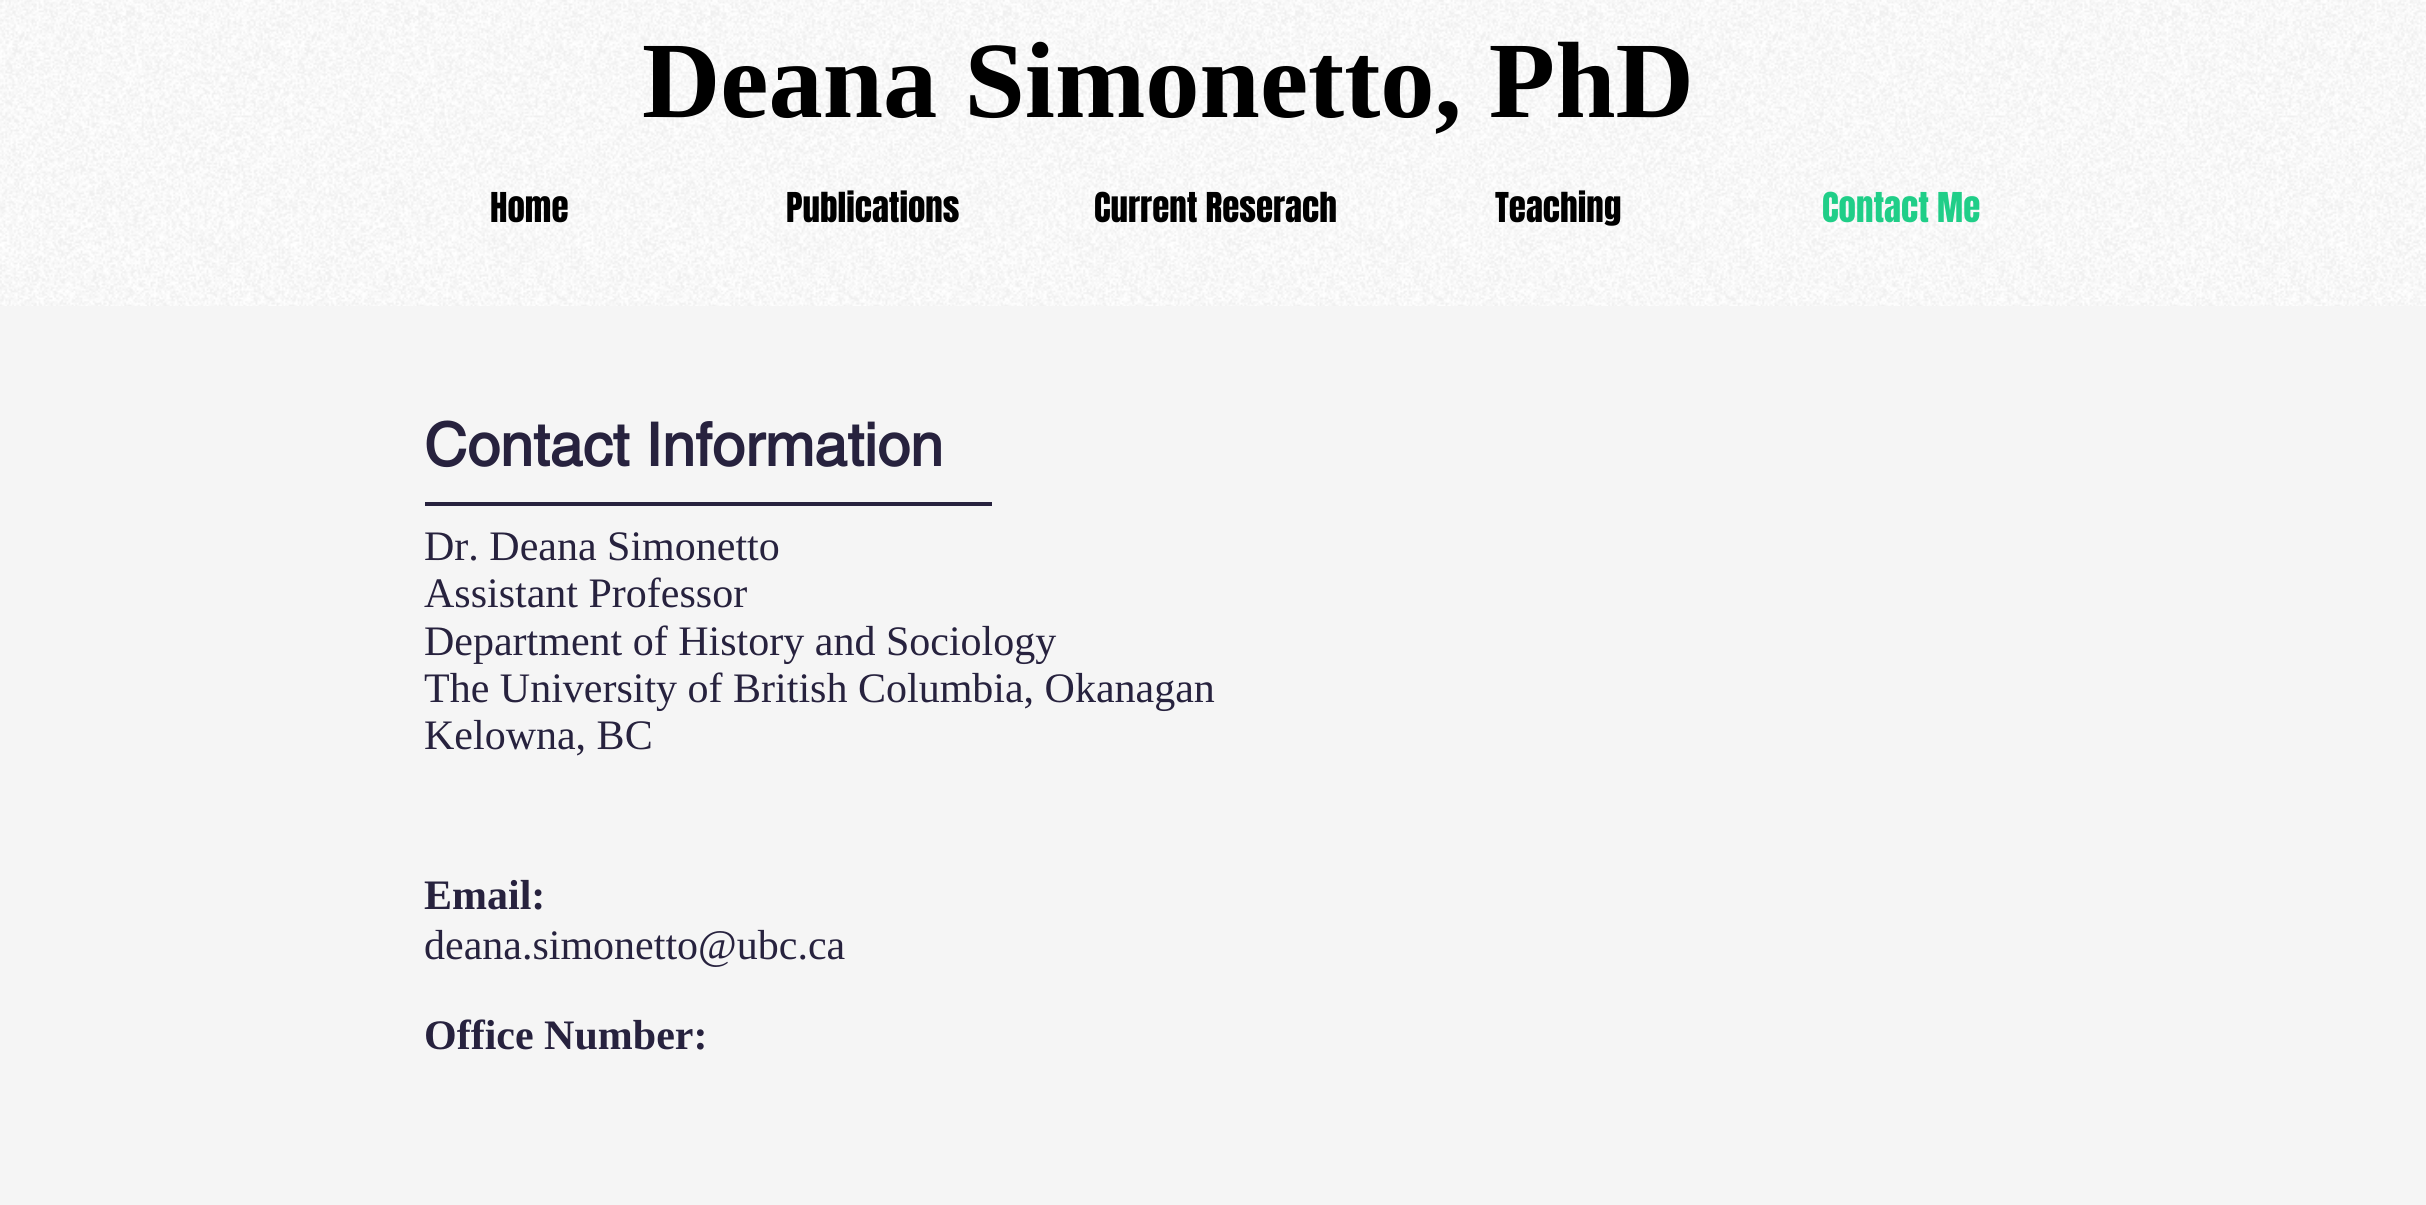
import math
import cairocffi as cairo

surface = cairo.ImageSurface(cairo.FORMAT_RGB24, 2426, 1205)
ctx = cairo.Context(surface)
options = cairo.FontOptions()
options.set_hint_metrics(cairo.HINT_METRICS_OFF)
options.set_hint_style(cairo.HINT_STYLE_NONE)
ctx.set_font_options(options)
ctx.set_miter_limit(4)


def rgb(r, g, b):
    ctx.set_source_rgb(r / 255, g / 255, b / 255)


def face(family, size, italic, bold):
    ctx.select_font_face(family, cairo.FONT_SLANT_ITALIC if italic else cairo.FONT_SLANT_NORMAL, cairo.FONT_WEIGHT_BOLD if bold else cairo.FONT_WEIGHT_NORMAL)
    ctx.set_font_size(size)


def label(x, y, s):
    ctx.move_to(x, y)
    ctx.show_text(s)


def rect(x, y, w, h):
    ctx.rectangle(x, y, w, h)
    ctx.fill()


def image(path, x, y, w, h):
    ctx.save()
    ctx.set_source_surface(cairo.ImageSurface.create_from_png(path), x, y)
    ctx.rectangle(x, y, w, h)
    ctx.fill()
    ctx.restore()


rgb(245, 245, 245)
ctx.paint()
rgb(255, 255, 255)
rect(0, 0, 2426, 306)
image('image0.png', 0, 0, 2426, 306)
face('Liberation Serif', 108.5, 0, 1)
rgb(0, 0, 0)
label(642, 117, 'Deana Simonetto, PhD')
face('Anton', 35, 0, 0)
label(490, 222, 'Home')
label(786, 222, 'Publications')
label(1094, 222, 'Current Reserach')
label(1495, 222, 'Teaching')
rgb(32, 206, 136)
label(1822, 222, 'Contact Me')
face('helvetica', 59.5, 0, 1)
rgb(39, 34, 62)
label(424, 466, 'Contact Information')
rect(425, 502, 567, 4)
face('Liberation Serif', 42, 0, 0)
label(424, 560, 'Dr. Deana Simonetto')
label(424, 607, 'Assistant Professor')
label(424, 655, 'Department of History and Sociology')
label(424, 702, 'The University of British Columbia, Okanagan')
label(424, 749, 'Kelowna, BC')
face('Liberation Serif', 42, 0, 1)
label(424, 909, 'Email:')
face('Liberation Serif', 42, 0, 0)
label(424, 959, 'deana.simonetto@ubc.ca')
face('Liberation Serif', 42, 0, 1)
label(424, 1049, 'Office Number:')
surface.write_to_png('render.png')
